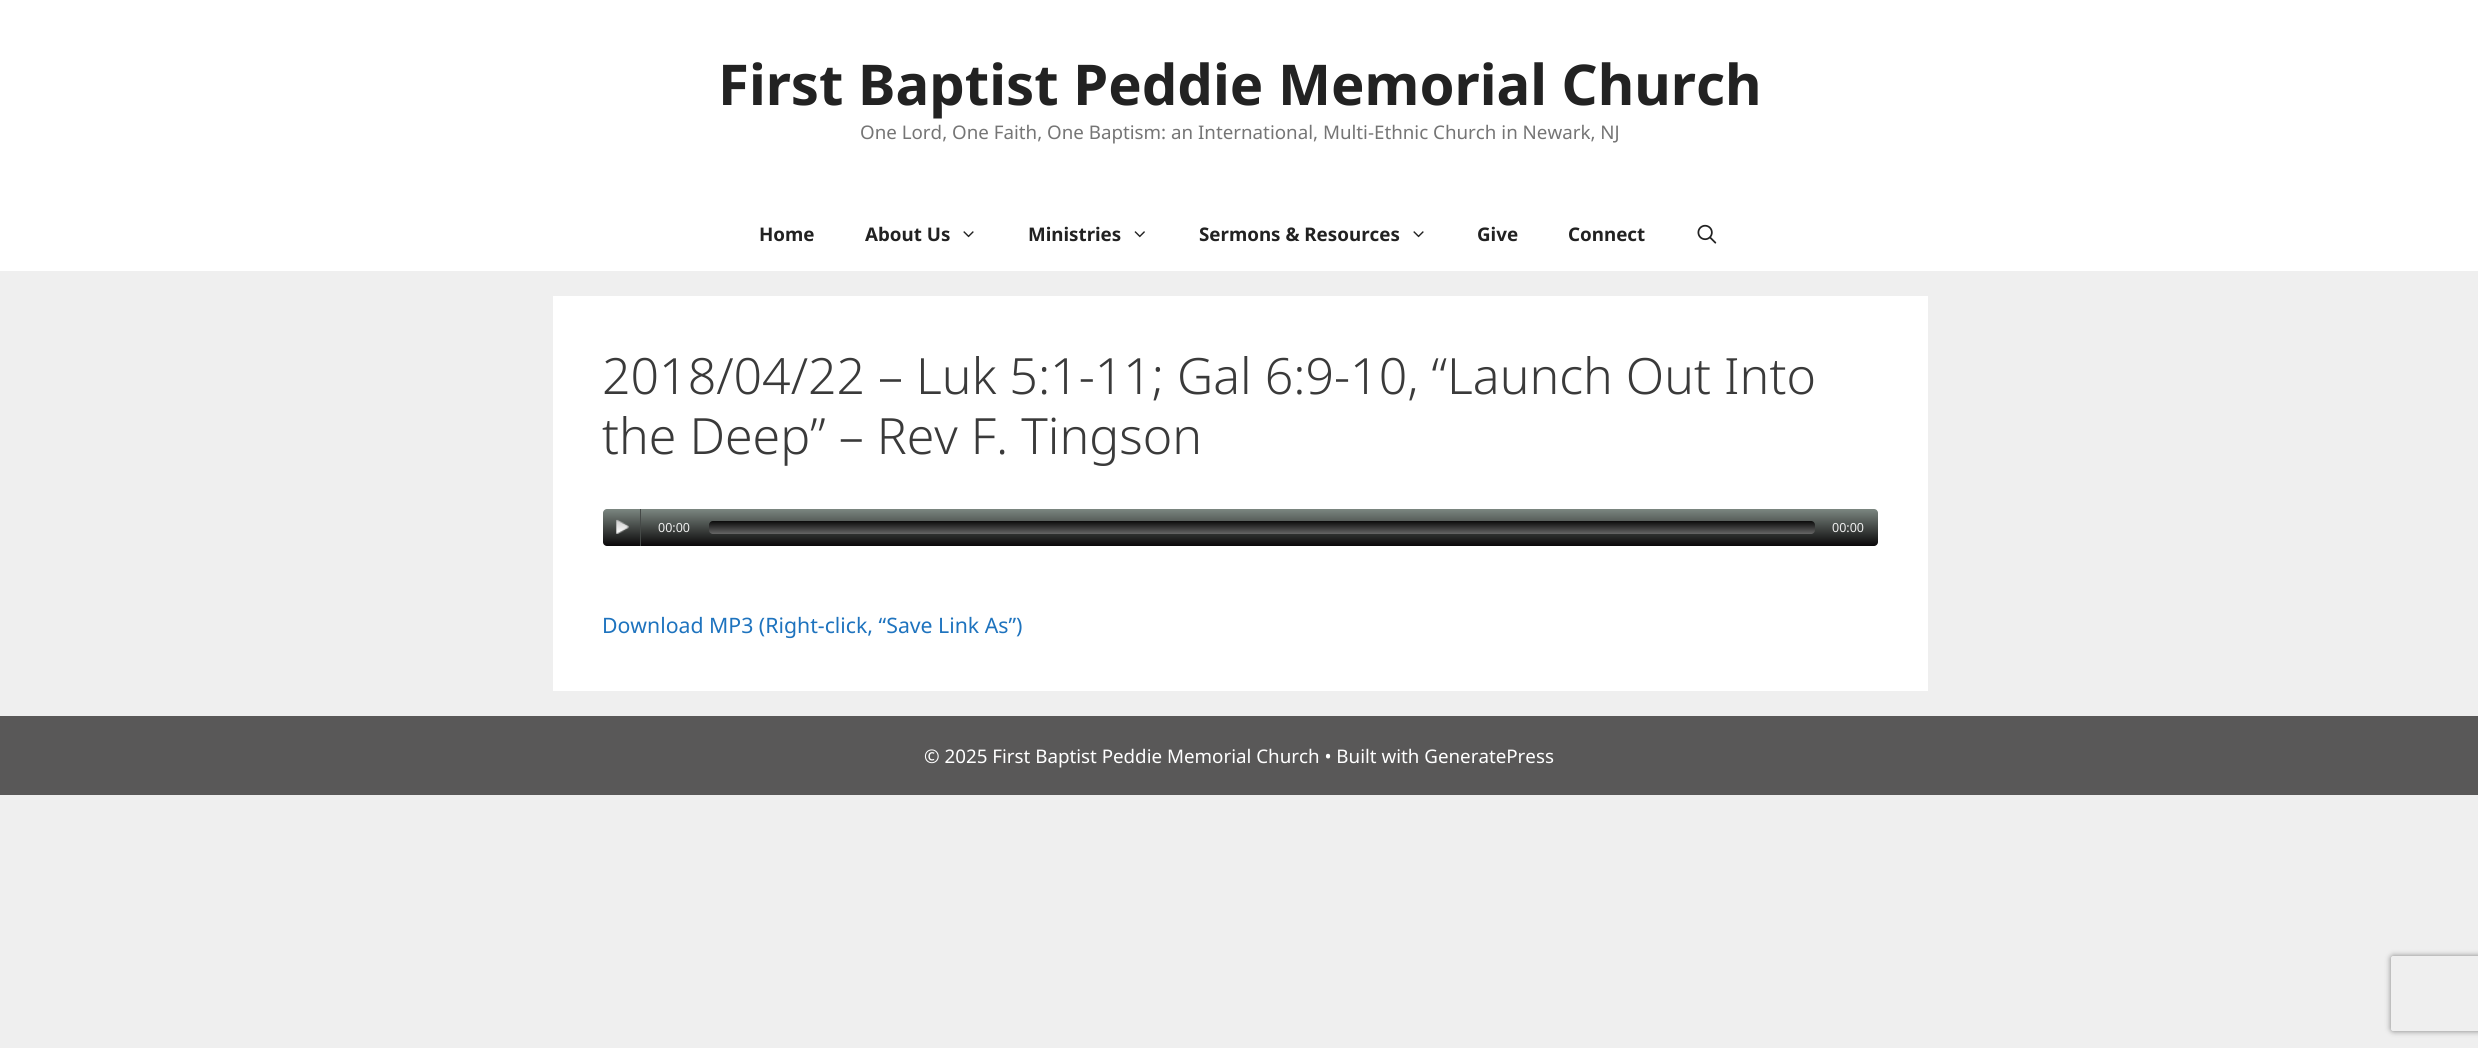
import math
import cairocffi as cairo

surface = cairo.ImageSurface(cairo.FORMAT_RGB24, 2478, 1048)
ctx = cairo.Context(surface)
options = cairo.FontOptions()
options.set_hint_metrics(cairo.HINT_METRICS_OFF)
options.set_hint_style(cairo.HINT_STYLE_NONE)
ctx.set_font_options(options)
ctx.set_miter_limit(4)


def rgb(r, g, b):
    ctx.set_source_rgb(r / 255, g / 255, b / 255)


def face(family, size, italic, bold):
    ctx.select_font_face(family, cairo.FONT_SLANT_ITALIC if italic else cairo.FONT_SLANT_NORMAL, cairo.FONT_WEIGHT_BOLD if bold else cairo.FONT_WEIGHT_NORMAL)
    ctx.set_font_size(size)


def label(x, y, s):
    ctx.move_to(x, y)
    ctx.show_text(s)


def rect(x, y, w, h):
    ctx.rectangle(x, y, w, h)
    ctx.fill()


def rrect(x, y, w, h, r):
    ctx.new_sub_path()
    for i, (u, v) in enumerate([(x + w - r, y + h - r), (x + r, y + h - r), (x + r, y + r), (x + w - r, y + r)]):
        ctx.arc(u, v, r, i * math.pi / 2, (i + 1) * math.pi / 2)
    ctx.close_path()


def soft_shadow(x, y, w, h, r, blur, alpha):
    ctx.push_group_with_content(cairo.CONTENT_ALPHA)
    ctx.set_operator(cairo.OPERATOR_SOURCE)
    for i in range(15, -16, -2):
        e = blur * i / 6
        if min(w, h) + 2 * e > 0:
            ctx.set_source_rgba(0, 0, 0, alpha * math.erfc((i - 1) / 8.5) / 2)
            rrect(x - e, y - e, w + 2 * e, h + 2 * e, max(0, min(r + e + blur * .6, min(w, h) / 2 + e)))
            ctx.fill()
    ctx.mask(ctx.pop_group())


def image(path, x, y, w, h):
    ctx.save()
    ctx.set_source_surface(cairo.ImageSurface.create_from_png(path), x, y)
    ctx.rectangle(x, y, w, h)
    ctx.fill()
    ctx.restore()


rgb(239, 239, 239)
ctx.paint()
rgb(255, 255, 255)
rect(0, 0, 2478, 271)
face('Noto Sans', 56.25, 0, 1)
rgb(34, 34, 34)
label(718, 105, 'First Baptist Peddie Memorial Church')
face('Noto Sans', 18.75, 0, 0)
rgb(117, 117, 117)
label(860, 139, 'One Lord, One Faith, One Baptism: an International, Multi-Ethnic Church in Newark, NJ')
face('Noto Sans', 18.75, 0, 1)
rgb(34, 34, 34)
label(759, 241, 'Home')
label(865, 241, 'About Us')
image('image0.png', 963, 231, 11, 7)
label(1028, 241, 'Ministries')
image('image1.png', 1134, 231, 11, 7)
label(1199, 241, 'Sermons & Resources')
image('image0.png', 1413, 231, 11, 7)
label(1477, 241, 'Give')
label(1568, 241, 'Connect')
image('image2.png', 1697, 224, 20, 20)
rgb(255, 255, 255)
rect(553, 296, 1375, 395)
face('Noto Sans Light', 50, 0, 0)
rgb(58, 58, 58)
label(602, 394, '2018/04/22 – Luk 5:1-11; Gal 6:9-10, “Launch Out Into')
label(602, 454, 'the Deep” – Rev F. Tingson')
gradient = cairo.LinearGradient(1240, 509, 1240, 546)
gradient.add_color_stop_rgba(0, 0.486, 0.529, 0.506, 1)
gradient.add_color_stop_rgba(1, 0.039, 0.031, 0.035, 1)
ctx.set_source(gradient)
rrect(603, 509, 1275, 37, 4)
ctx.fill()
image('image3.png', 616, 519, 13, 15)
rgb(69, 73, 71)
rect(640, 509, 1, 37)
face('Noto Sans', 12.5, 0, 0)
rgb(238, 238, 238)
label(658, 532, '00:00')
gradient = cairo.LinearGradient(1262, 521, 1262, 534)
gradient.add_color_stop_rgba(0, 0.043, 0.043, 0.043, 1)
gradient.add_color_stop_rgba(1, 0.4, 0.4, 0.4, 1)
ctx.set_source(gradient)
rrect(709, 521, 1106, 13, 4)
ctx.fill()
rgb(238, 238, 238)
label(1832, 532, '00:00')
face('Noto Sans', 21.25, 0, 0)
rgb(30, 115, 190)
label(602, 633, 'Download MP3 (Right-click, “Save Link As”)')
rgb(89, 88, 88)
rect(0, 716, 2478, 79)
face('Noto Sans', 18.75, 0, 0)
rgb(255, 255, 255)
label(924, 763, '© 2025 First Baptist Peddie Memorial Church • Built with GeneratePress')
ctx.save()
ctx.set_fill_rule(cairo.FILL_RULE_EVEN_ODD)
ctx.new_path()
ctx.move_to(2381, 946)
ctx.line_to(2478, 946)
ctx.line_to(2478, 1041)
ctx.line_to(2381, 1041)
ctx.close_path()
ctx.move_to(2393.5, 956)
ctx.line_to(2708.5, 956)
ctx.curve_to(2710, 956, 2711, 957, 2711, 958.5)
ctx.line_to(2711, 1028.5)
ctx.curve_to(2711, 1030, 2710, 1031, 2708.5, 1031)
ctx.line_to(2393.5, 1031)
ctx.curve_to(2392, 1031, 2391, 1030, 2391, 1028.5)
ctx.line_to(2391, 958.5)
ctx.curve_to(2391, 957, 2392, 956, 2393.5, 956)
ctx.close_path()
ctx.clip()
rgb(128, 128, 128)
soft_shadow(2391, 956, 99, 75, 2.5, 3, 1)
ctx.restore()
surface.write_to_png('render.png')
